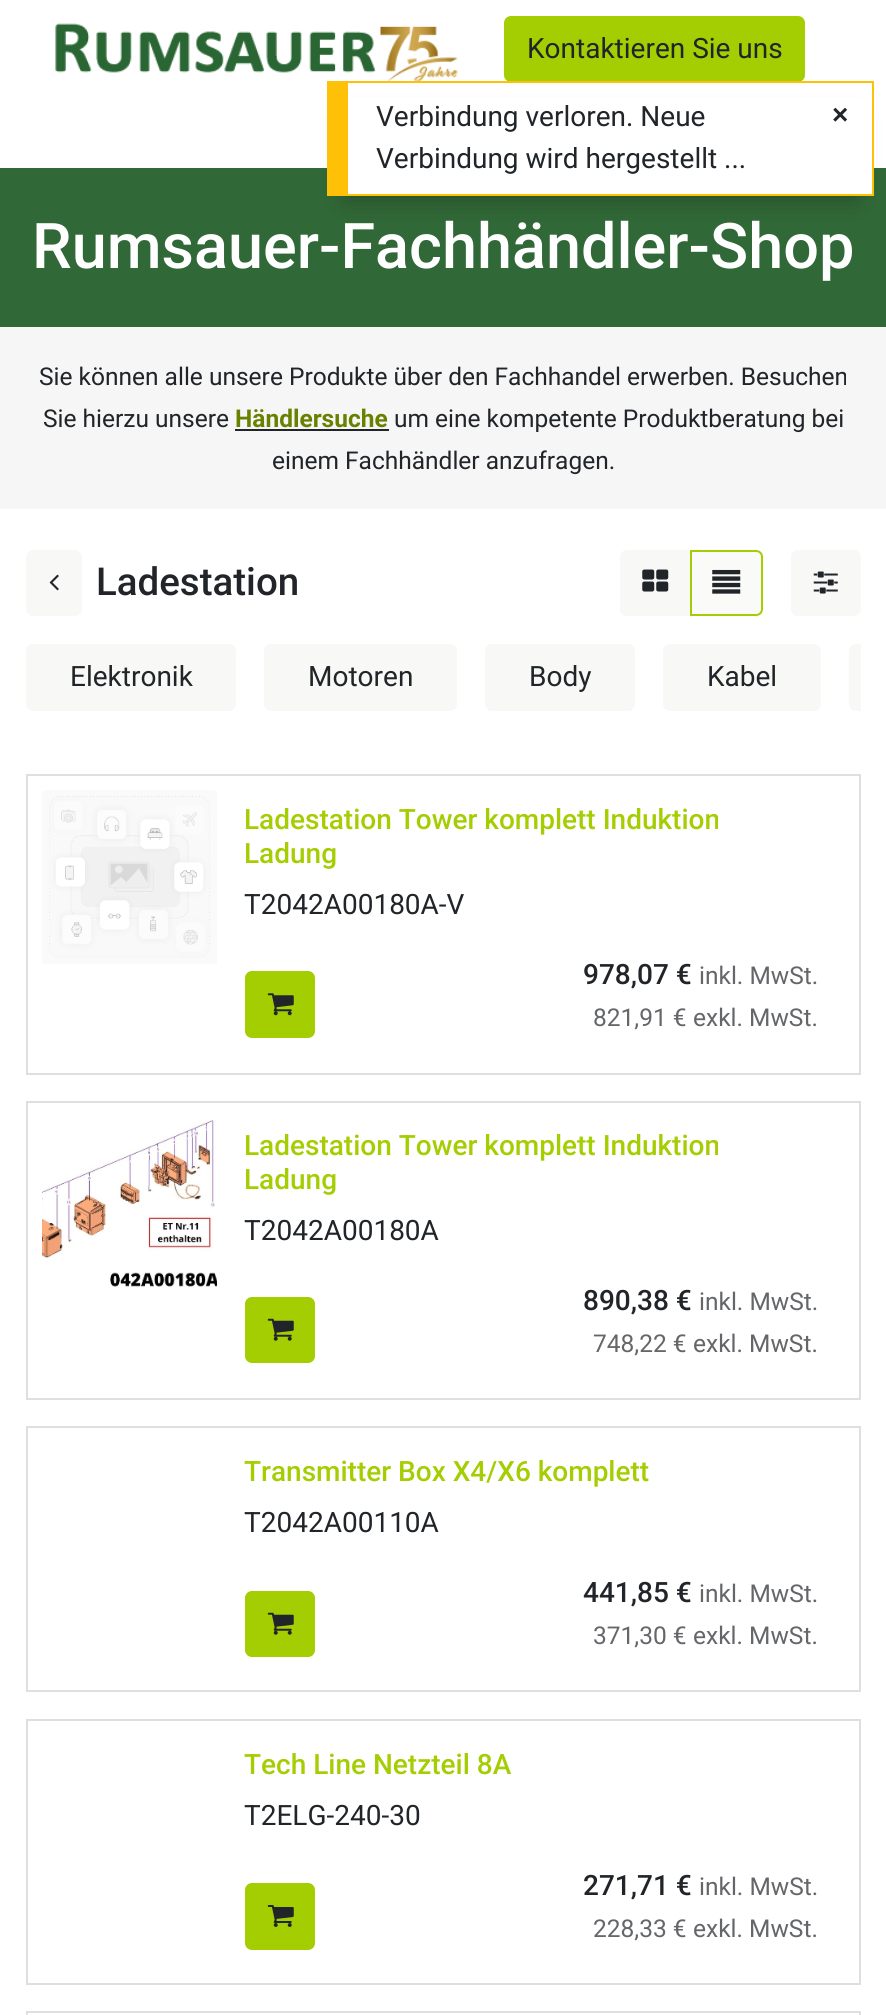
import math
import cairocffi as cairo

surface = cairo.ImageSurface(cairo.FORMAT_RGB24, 886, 2015)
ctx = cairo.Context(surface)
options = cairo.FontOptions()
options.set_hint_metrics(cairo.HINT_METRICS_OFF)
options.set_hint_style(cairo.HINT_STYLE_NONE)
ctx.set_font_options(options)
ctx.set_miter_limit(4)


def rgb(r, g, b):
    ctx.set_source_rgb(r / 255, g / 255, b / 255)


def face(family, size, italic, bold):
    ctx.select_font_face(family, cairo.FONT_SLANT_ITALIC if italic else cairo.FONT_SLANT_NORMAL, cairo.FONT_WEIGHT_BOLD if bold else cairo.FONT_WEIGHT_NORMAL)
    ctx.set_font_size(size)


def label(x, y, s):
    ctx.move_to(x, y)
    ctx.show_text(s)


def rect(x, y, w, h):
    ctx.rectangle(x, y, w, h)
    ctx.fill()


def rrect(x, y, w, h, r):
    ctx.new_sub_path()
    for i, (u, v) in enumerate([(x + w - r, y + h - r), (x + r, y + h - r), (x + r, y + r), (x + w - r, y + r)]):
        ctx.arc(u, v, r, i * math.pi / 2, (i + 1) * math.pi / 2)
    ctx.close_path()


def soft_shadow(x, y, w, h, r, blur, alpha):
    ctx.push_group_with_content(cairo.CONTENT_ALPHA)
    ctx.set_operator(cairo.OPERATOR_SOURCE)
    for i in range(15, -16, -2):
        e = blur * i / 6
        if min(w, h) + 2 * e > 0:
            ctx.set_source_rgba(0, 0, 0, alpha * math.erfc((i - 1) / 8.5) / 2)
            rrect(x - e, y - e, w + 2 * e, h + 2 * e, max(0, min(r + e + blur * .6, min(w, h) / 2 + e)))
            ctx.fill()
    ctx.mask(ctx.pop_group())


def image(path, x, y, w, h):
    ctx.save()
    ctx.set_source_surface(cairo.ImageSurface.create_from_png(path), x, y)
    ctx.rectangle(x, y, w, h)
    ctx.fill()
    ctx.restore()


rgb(255, 255, 255)
ctx.paint()
image('image0.png', 55, 23, 403, 58)
rgb(164, 205, 2)
rrect(505, 17, 299, 64, 6)
ctx.fill_preserve()
ctx.stroke()
face('Roboto', 28, 0, 0)
rgb(33, 37, 41)
label(527, 58, 'Kontaktieren Sie uns')
rgb(49, 104, 55)
rect(0, 168, 886, 159)
face('Roboto Medium', 63, 0, 0)
rgb(255, 255, 255)
label(32, 268, 'Rumsauer-Fachhändler-Shop')
rgb(246, 246, 246)
rect(0, 327, 886, 182)
face('Roboto', 24.5, 0, 0)
rgb(33, 37, 41)
label(39, 385, 'Sie können alle unsere Produkte über den Fachhandel erwerben. Besuchen')
label(43, 427, 'Sie hierzu unsere')
face('Roboto', 24.5, 0, 1)
rgb(103, 129, 1)
label(235, 427, 'Händlersuche')
rgb(33, 37, 41)
rect(235, 429, 154, 2)
face('Roboto', 24.5, 0, 0)
label(394, 427, 'um eine kompetente Produktberatung bei')
label(272, 469, 'einem Fachhändler anzufragen.')
rgb(248, 249, 246)
rrect(26, 550, 56, 66, 7)
ctx.fill()
image('image1.png', 49, 574, 10, 17)
face('Roboto Medium', 38.5, 0, 0)
rgb(33, 37, 41)
label(96, 595, 'Ladestation')
rgb(248, 249, 246)
ctx.new_path()
ctx.move_to(627, 550)
ctx.line_to(691, 550)
ctx.line_to(691, 616)
ctx.line_to(627, 616)
ctx.curve_to(623, 616, 620, 613, 620, 609)
ctx.line_to(620, 557)
ctx.curve_to(620, 553, 623, 550, 627, 550)
ctx.close_path()
ctx.fill()
image('image2.png', 642, 569, 27, 23)
rgb(250, 250, 248)
ctx.new_path()
ctx.move_to(691, 551)
ctx.line_to(756, 551)
ctx.curve_to(759.5, 551, 762, 553.5, 762, 557)
ctx.line_to(762, 609)
ctx.curve_to(762, 612.5, 759.5, 615, 756, 615)
ctx.line_to(691, 615)
ctx.close_path()
ctx.fill_preserve()
rgb(164, 205, 2)
ctx.stroke()
image('image3.png', 712, 569, 29, 25)
rgb(248, 249, 246)
rrect(791, 550, 70, 66, 7)
ctx.fill()
image('image4.png', 813, 571, 25, 23)
rrect(26, 644, 210, 67, 7)
ctx.fill()
face('Roboto', 28, 0, 0)
rgb(33, 37, 41)
label(70, 686, 'Elektronik')
rgb(248, 249, 246)
rrect(264, 644, 193, 67, 7)
ctx.fill()
rgb(33, 37, 41)
label(308, 686, 'Motoren')
rgb(248, 249, 246)
rrect(485, 644, 150, 67, 7)
ctx.fill()
rgb(33, 37, 41)
label(529, 686, 'Body')
rgb(248, 249, 246)
rrect(663, 644, 158, 67, 7)
ctx.fill()
rgb(33, 37, 41)
label(707, 686, 'Kabel')
rgb(248, 249, 246)
ctx.new_path()
ctx.move_to(856, 644)
ctx.line_to(861, 644)
ctx.line_to(861, 711)
ctx.line_to(856, 711)
ctx.curve_to(852, 711, 849, 708, 849, 704)
ctx.line_to(849, 651)
ctx.curve_to(849, 647, 852, 644, 856, 644)
ctx.close_path()
ctx.fill()
ctx.rectangle(27, 775, 833, 299)
rgb(223, 223, 223)
ctx.stroke()
image('image5.png', 42, 790, 175, 174)
face('Roboto Medium', 28, 0, 0)
rgb(164, 205, 2)
label(244, 829, 'Ladestation Tower komplett Induktion')
label(244, 863, 'Ladung')
face('Roboto', 28, 0, 0)
rgb(33, 37, 41)
label(244, 914, 'T2042A00180A-V')
rgb(164, 205, 2)
rrect(246, 972, 68, 65, 6)
ctx.fill_preserve()
ctx.stroke()
image('image6.png', 267, 993, 27, 23)
face('Roboto Medium', 28, 0, 0)
rgb(33, 37, 41)
label(583, 984, '978,07 €')
face('Roboto', 24.5, 0, 0)
rgb(100, 102, 105)
label(699, 984, 'inkl. MwSt.')
label(593, 1026, '821,91 €')
label(693, 1026, 'exkl. MwSt.')
ctx.rectangle(27, 1102, 833, 297)
rgb(223, 223, 223)
ctx.stroke()
image('image7.png', 42, 1119, 175, 168)
face('Roboto Medium', 28, 0, 0)
rgb(164, 205, 2)
label(244, 1155, 'Ladestation Tower komplett Induktion')
label(244, 1189, 'Ladung')
face('Roboto', 28, 0, 0)
rgb(33, 37, 41)
label(244, 1240, 'T2042A00180A')
rgb(164, 205, 2)
rrect(246, 1298, 68, 64, 6)
ctx.fill_preserve()
ctx.stroke()
image('image8.png', 267, 1318, 27, 23)
face('Roboto Medium', 28, 0, 0)
rgb(33, 37, 41)
label(583, 1310, '890,38 €')
face('Roboto', 24.5, 0, 0)
rgb(100, 102, 105)
label(699, 1310, 'inkl. MwSt.')
label(593, 1352, '748,22 €')
label(693, 1352, 'exkl. MwSt.')
ctx.rectangle(27, 1427, 833, 264)
rgb(223, 223, 223)
ctx.stroke()
face('Roboto Medium', 28, 0, 0)
rgb(164, 205, 2)
label(244, 1481, 'Transmitter Box X4/X6 komplett')
face('Roboto', 28, 0, 0)
rgb(33, 37, 41)
label(244, 1532, 'T2042A00110A')
rgb(164, 205, 2)
rrect(246, 1592, 68, 64, 6)
ctx.fill_preserve()
ctx.stroke()
image('image8.png', 267, 1612, 27, 23)
face('Roboto Medium', 28, 0, 0)
rgb(33, 37, 41)
label(583, 1602, '441,85 €')
face('Roboto', 24.5, 0, 0)
rgb(100, 102, 105)
label(699, 1602, 'inkl. MwSt.')
label(593, 1644, '371,30 €')
label(693, 1644, 'exkl. MwSt.')
ctx.rectangle(27, 1720, 833, 264)
rgb(223, 223, 223)
ctx.stroke()
face('Roboto Medium', 28, 0, 0)
rgb(164, 205, 2)
label(244, 1774, 'Tech Line Netzteil 8A')
face('Roboto', 28, 0, 0)
rgb(33, 37, 41)
label(244, 1825, 'T2ELG-240-30')
rgb(164, 205, 2)
rrect(246, 1884, 68, 65, 6)
ctx.fill_preserve()
ctx.stroke()
image('image9.png', 267, 1905, 27, 22)
face('Roboto Medium', 28, 0, 0)
rgb(33, 37, 41)
label(583, 1895, '271,71 €')
face('Roboto', 24.5, 0, 0)
rgb(100, 102, 105)
label(699, 1895, 'inkl. MwSt.')
label(593, 1937, '228,33 €')
label(693, 1937, 'exkl. MwSt.')
ctx.rectangle(27, 2012, 833, 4)
rgb(223, 223, 223)
ctx.stroke()
rgb(0, 0, 0)
soft_shadow(345, 119, 511, 81, 0, 12, 0.25)
rgb(255, 255, 255)
rect(348, 98, 524, 96)
rgb(255, 193, 7)
rect(348, 81, 525, 2)
rect(872, 81, 2, 115)
rect(348, 194, 525, 2)
rect(327, 81, 21, 115)
face('Roboto', 28, 0, 0)
rgb(33, 37, 41)
label(376, 126, 'Verbindung verloren. Neue')
label(376, 168, 'Verbindung wird hergestellt ...')
face('Liberation Sans', 28, 0, 1)
label(832, 124, '×')
surface.write_to_png('render.png')
